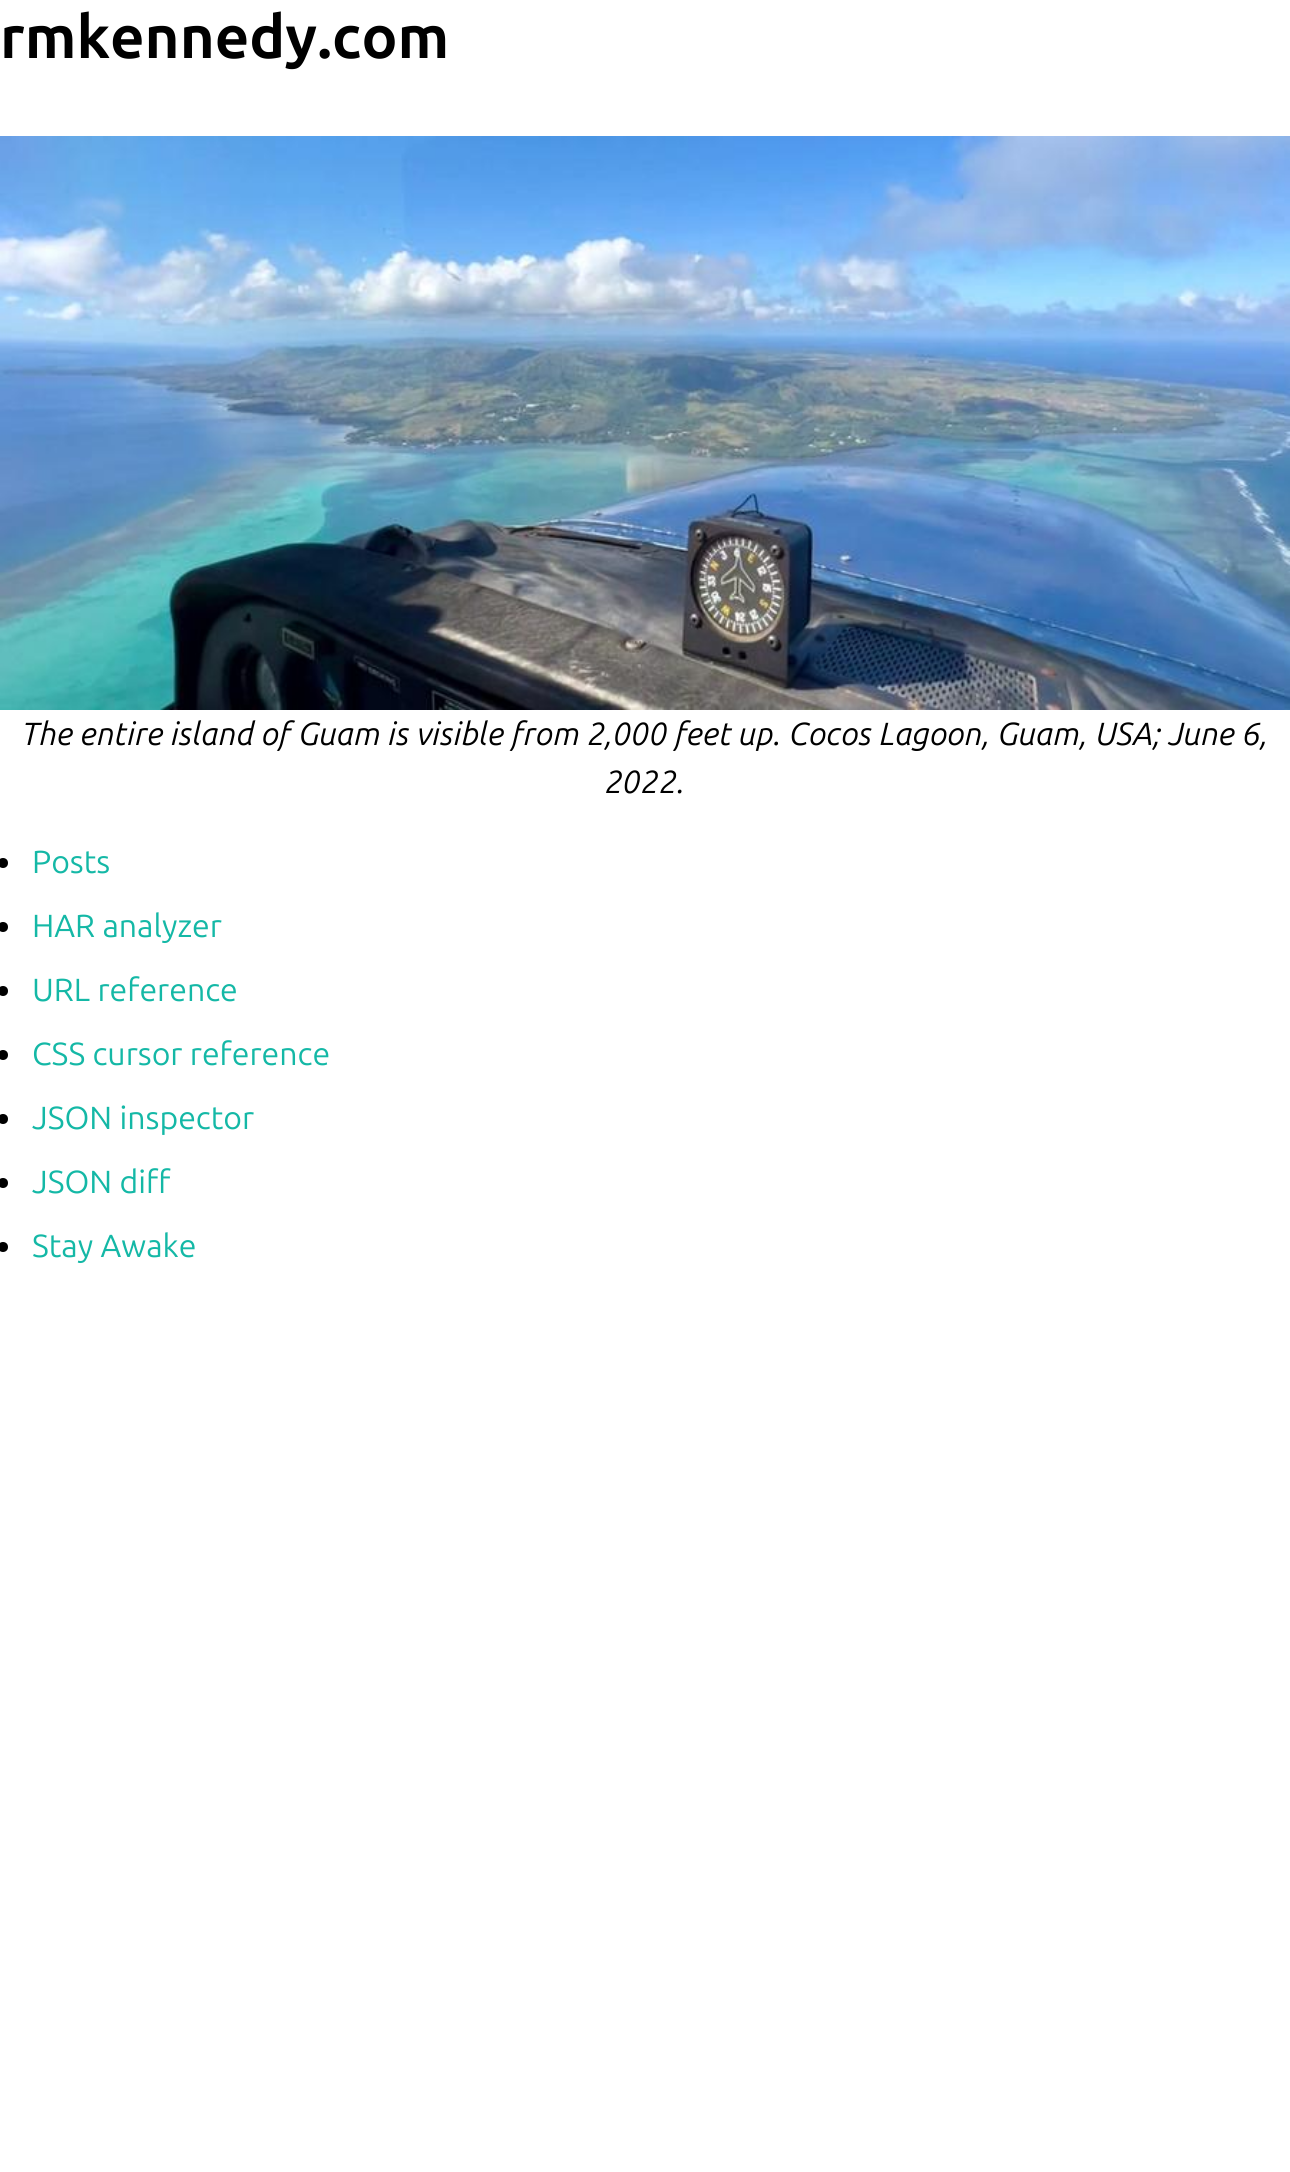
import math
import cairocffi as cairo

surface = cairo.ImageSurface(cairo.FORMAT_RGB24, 1290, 2172)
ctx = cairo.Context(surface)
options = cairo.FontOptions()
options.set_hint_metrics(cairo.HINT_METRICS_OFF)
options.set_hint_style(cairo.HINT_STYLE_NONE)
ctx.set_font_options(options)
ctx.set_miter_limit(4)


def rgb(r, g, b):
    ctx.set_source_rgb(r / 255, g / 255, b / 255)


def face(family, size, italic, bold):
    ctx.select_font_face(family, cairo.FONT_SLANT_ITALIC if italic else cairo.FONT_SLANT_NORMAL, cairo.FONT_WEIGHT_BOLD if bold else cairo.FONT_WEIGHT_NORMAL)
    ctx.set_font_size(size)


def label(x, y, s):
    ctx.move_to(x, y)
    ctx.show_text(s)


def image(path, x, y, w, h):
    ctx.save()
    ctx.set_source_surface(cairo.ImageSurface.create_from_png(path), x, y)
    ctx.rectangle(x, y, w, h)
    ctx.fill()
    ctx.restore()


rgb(255, 255, 255)
ctx.paint()
face('Ubuntu', 60, 0, 1)
rgb(0, 0, 0)
label(0, 58, 'rmkennedy.com')
image('image0.png', 0, 136, 1290, 574)
face('Ubuntu', 32, 1, 0)
label(22, 745, 'The entire island of Guam is visible from 2,000 feet up. Cocos Lagoon, Guam, USA; June 6,')
label(605, 793, '2022.')
ctx.new_path()
ctx.arc(3, 863, 5, 0, 2 * math.pi)
ctx.fill()
face('Ubuntu', 32, 0, 0)
rgb(20, 184, 166)
label(32, 873, 'Posts')
rgb(0, 0, 0)
ctx.new_path()
ctx.arc(3, 927, 5, 0, 2 * math.pi)
ctx.fill()
rgb(20, 184, 166)
label(32, 937, 'HAR analyzer')
rgb(0, 0, 0)
ctx.new_path()
ctx.arc(3, 991, 5, 0, 2 * math.pi)
ctx.fill()
rgb(20, 184, 166)
label(32, 1001, 'URL reference')
rgb(0, 0, 0)
ctx.new_path()
ctx.arc(3, 1055, 5, 0, 2 * math.pi)
ctx.fill()
rgb(20, 184, 166)
label(32, 1065, 'CSS cursor reference')
rgb(0, 0, 0)
ctx.new_path()
ctx.arc(3, 1119, 5, 0, 2 * math.pi)
ctx.fill()
rgb(20, 184, 166)
label(32, 1129, 'JSON inspector')
rgb(0, 0, 0)
ctx.new_path()
ctx.arc(3, 1183, 5, 0, 2 * math.pi)
ctx.fill()
rgb(20, 184, 166)
label(32, 1193, 'JSON diff')
rgb(0, 0, 0)
ctx.new_path()
ctx.arc(3, 1247, 5, 0, 2 * math.pi)
ctx.fill()
rgb(20, 184, 166)
label(32, 1257, 'Stay Awake')
surface.write_to_png('render.png')
